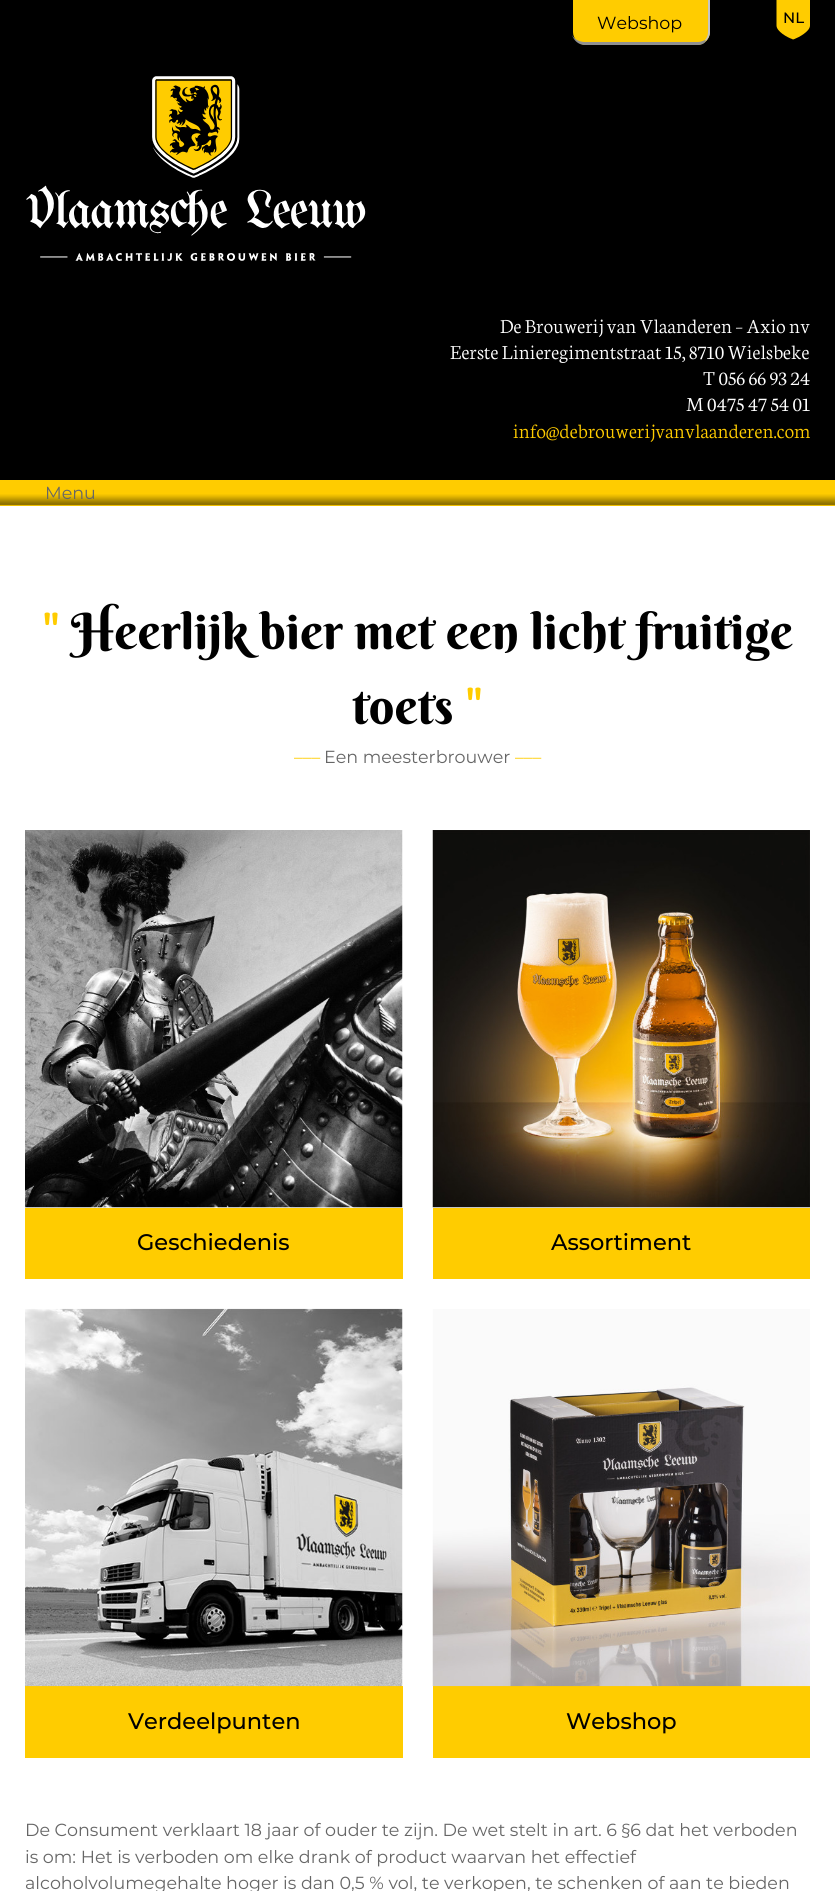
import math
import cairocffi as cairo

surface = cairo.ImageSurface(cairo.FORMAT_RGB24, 835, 1891)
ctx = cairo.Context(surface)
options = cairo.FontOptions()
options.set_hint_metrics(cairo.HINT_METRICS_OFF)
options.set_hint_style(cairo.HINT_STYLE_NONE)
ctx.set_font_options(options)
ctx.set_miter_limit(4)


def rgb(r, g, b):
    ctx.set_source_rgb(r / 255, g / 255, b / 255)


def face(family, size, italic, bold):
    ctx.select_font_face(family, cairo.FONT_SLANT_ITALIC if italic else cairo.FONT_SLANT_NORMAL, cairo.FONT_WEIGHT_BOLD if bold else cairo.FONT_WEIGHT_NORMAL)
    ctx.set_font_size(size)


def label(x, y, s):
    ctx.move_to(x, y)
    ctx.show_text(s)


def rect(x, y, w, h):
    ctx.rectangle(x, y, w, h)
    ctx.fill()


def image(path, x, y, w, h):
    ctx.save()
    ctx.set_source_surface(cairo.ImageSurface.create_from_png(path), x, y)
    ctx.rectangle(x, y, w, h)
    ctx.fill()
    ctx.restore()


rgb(255, 255, 255)
ctx.paint()
rgb(0, 0, 0)
rect(0, 0, 835, 480)
rgb(255, 204, 0)
ctx.new_path()
ctx.move_to(573, 0)
ctx.line_to(710, 0)
ctx.line_to(710, 32)
ctx.curve_to(710, 39, 704, 45, 697, 45)
ctx.line_to(586, 45)
ctx.curve_to(579, 45, 573, 39, 573, 32)
ctx.close_path()
ctx.fill()
rgb(197, 197, 197)
ctx.new_path()
ctx.move_to(710, 0)
ctx.line_to(708, 0)
ctx.line_to(708, 32)
ctx.curve_to(708, 35, 707, 38, 705, 40)
ctx.line_to(706, 41)
ctx.curve_to(708, 39, 710, 36, 710, 32)
ctx.close_path()
ctx.fill()
rgb(145, 145, 145)
ctx.new_path()
ctx.move_to(572, 35)
ctx.curve_to(574, 39, 579, 42, 585, 42)
ctx.line_to(698, 42)
ctx.curve_to(700, 42, 703, 41, 705, 40)
ctx.line_to(706, 41)
ctx.curve_to(704, 44, 701, 45, 698, 45)
ctx.line_to(585, 45)
ctx.curve_to(579, 45, 574, 41, 572, 35)
ctx.close_path()
ctx.fill()
face('Montserrat', 17.5, 0, 0)
rgb(0, 0, 0)
label(597, 29, 'Webshop')
rgb(255, 204, 0)
ctx.new_path()
ctx.move_to(776.5, 0)
ctx.line_to(776.5, 25.5)
ctx.curve_to(776.5, 31.5, 787.5, 37.5, 792, 39)
ctx.line_to(793, 39.5)
ctx.line_to(794.5, 39)
ctx.curve_to(798.5, 37.5, 810, 31.5, 810, 25.5)
ctx.line_to(810, 0)
ctx.close_path()
ctx.fill()
face('Montserrat Medium', 15, 0, 0)
rgb(0, 0, 0)
label(783, 23, 'NL')
image('image0.png', 26, 76, 340, 185)
face('Neuton Light', 21.25, 0, 0)
rgb(255, 255, 255)
label(500, 333, 'De Brouwerij van Vlaanderen – Axio nv')
label(450, 359, 'Eerste Linieregimentstraat 15, 8710 Wielsbeke')
label(703, 385, 'T 056 66 93 24')
label(686, 411, 'M 0475 47 54 01')
rgb(255, 204, 0)
label(513, 438, 'info@debrouwerijvanvlaanderen.com')
rect(0, 480, 835, 26)
image('image1.png', 0, 494, 835, 12)
face('Montserrat', 17.5, 0, 0)
rgb(102, 102, 102)
label(45, 499, 'Menu')
face('Berkshire Swash', 50, 0, 0)
rgb(255, 204, 0)
label(42, 649, '"')
rgb(0, 0, 0)
label(71, 649, 'Heerlijk bier met een licht fruitige')
label(352, 724, 'toets')
rgb(255, 204, 0)
label(465, 724, '"')
face('Montserrat', 17.5, 0, 0)
label(294, 763, '–––')
rgb(102, 102, 102)
label(324, 763, 'Een meesterbrouwer')
rgb(255, 204, 0)
label(515, 763, '–––')
image('image2.png', 25, 830, 378, 378)
rect(25, 1208, 378, 71)
face('Montserrat Medium', 22.5, 0, 0)
rgb(0, 0, 0)
label(137, 1250, 'Geschiedenis')
image('image3.png', 432, 830, 378, 378)
rgb(255, 204, 0)
rect(433, 1208, 377, 71)
rgb(0, 0, 0)
label(551, 1250, 'Assortiment')
rgb(255, 204, 0)
rect(25, 1686, 378, 72)
image('image4.png', 25, 1308, 378, 379)
rgb(0, 0, 0)
label(128, 1729, 'Verdeelpunten')
rgb(255, 204, 0)
rect(433, 1686, 377, 72)
image('image5.png', 432, 1309, 378, 378)
rgb(0, 0, 0)
label(566, 1729, 'Webshop')
face('Montserrat', 17.5, 0, 0)
rgb(102, 102, 102)
label(25, 1836, 'De Consument verklaart 18 jaar of ouder te zijn. De wet stelt in art. 6 §6 dat het verboden')
label(25, 1863, 'is om: Het is verboden om elke drank of product waarvan het effectief')
label(25, 1889, 'alcoholvolumegehalte hoger is dan 0,5 % vol, te verkopen, te schenken of aan te bieden')
surface.write_to_png('render.png')
